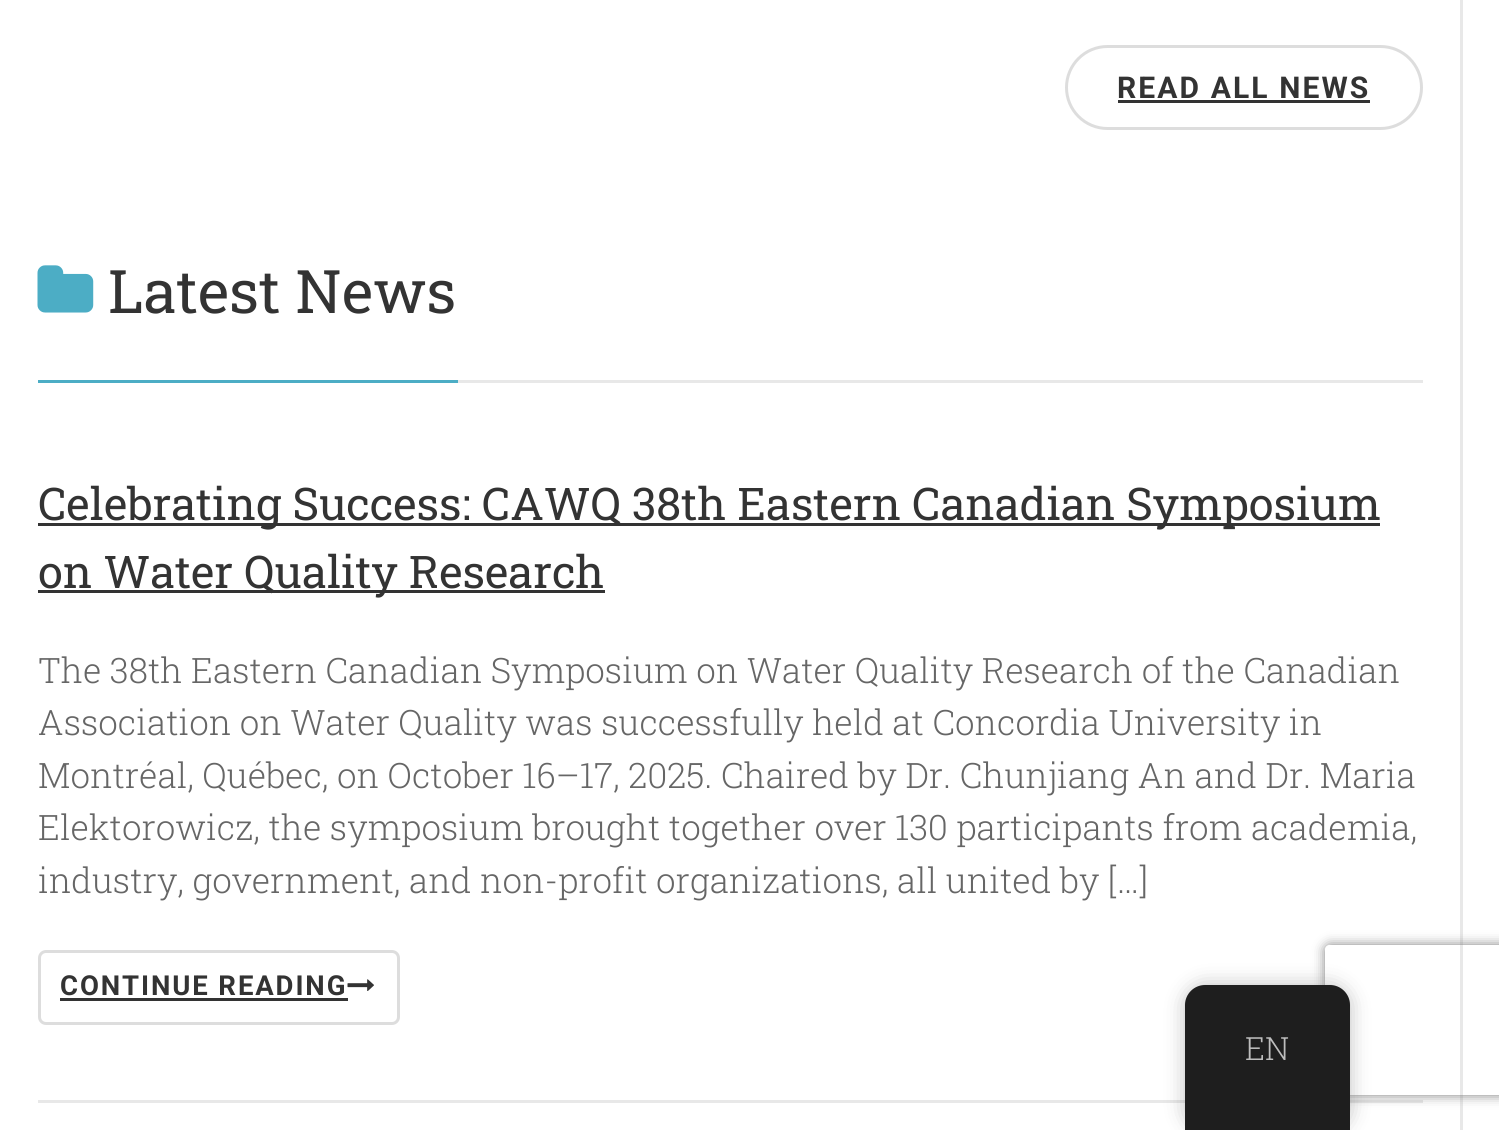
import math
import cairocffi as cairo

surface = cairo.ImageSurface(cairo.FORMAT_RGB24, 1499, 1130)
ctx = cairo.Context(surface)
options = cairo.FontOptions()
options.set_hint_metrics(cairo.HINT_METRICS_OFF)
options.set_hint_style(cairo.HINT_STYLE_NONE)
ctx.set_font_options(options)
ctx.set_miter_limit(4)


def rgb(r, g, b):
    ctx.set_source_rgb(r / 255, g / 255, b / 255)


def face(family, size, italic, bold):
    ctx.select_font_face(family, cairo.FONT_SLANT_ITALIC if italic else cairo.FONT_SLANT_NORMAL, cairo.FONT_WEIGHT_BOLD if bold else cairo.FONT_WEIGHT_NORMAL)
    ctx.set_font_size(size)


def label(x, y, s):
    ctx.move_to(x, y)
    ctx.show_text(s)


def tracked(x, y, s, letter, word):
    ctx.move_to(x, y)
    for ch in s:
        ctx.show_text(ch)
        ctx.rel_move_to(letter + word * (ch == ' '), 0)


def rect(x, y, w, h):
    ctx.rectangle(x, y, w, h)
    ctx.fill()


def rrect(x, y, w, h, r):
    ctx.new_sub_path()
    for i, (u, v) in enumerate([(x + w - r, y + h - r), (x + r, y + h - r), (x + r, y + r), (x + w - r, y + r)]):
        ctx.arc(u, v, r, i * math.pi / 2, (i + 1) * math.pi / 2)
    ctx.close_path()


def soft_shadow(x, y, w, h, r, blur, alpha):
    ctx.push_group_with_content(cairo.CONTENT_ALPHA)
    ctx.set_operator(cairo.OPERATOR_SOURCE)
    for i in range(15, -16, -2):
        e = blur * i / 6
        if min(w, h) + 2 * e > 0:
            ctx.set_source_rgba(0, 0, 0, alpha * math.erfc((i - 1) / 8.5) / 2)
            rrect(x - e, y - e, w + 2 * e, h + 2 * e, max(0, min(r + e + blur * .6, min(w, h) / 2 + e)))
            ctx.fill()
    ctx.mask(ctx.pop_group())


def image(path, x, y, w, h):
    ctx.save()
    ctx.set_source_surface(cairo.ImageSurface.create_from_png(path), x, y)
    ctx.rectangle(x, y, w, h)
    ctx.fill()
    ctx.restore()


rgb(255, 255, 255)
ctx.paint()
rgb(232, 232, 232)
rect(1460, 0, 3, 1130)
rrect(1066.5, 46.5, 355, 82, 41)
rgb(221, 221, 221)
ctx.set_line_width(3)
ctx.stroke()
face('Roboto', 30, 0, 1)
rgb(51, 51, 51)
tracked(1117, 98, 'READ ALL NEWS', 2.1, 0)
rect(1118, 100, 252, 3)
rgb(232, 232, 232)
rect(458, 380, 965, 3)
rgb(76, 173, 197)
rect(38, 380, 420, 3)
image('image0.png', 37, 265, 57, 48)
face('Roboto Slab', 60, 0, 0)
rgb(51, 51, 51)
label(108, 313, 'Latest News')
rgb(232, 232, 232)
rect(38, 1100, 1385, 3)
rgb(51, 51, 51)
rect(38, 523, 1342, 3)
face('Roboto Slab', 45, 0, 0)
label(38, 520, 'Celebrating Success: CAWQ 38th Eastern Canadian Symposium')
rect(38, 590, 567, 3)
label(38, 588, 'on Water Quality Research')
face('Roboto Slab Light', 35, 0, 0)
rgb(102, 102, 102)
label(38, 683, 'The 38th Eastern Canadian Symposium on Water Quality Research of the Canadian')
label(38, 735, 'Association on Water Quality was successfully held at Concordia University in')
label(38, 788, 'Montréal, Québec, on October 16–17, 2025. Chaired by Dr. Chunjiang An and Dr. Maria')
label(38, 840, 'Elektorowicz, the symposium brought together over 130 participants from academia,')
label(38, 893, 'industry, government, and non-profit organizations, all united by […]')
rrect(39.5, 951.5, 359, 72, 6.5)
rgb(221, 221, 221)
ctx.stroke()
face('Roboto', 27.5, 0, 1)
rgb(51, 51, 51)
tracked(60, 995, 'CONTINUE READING', 1.9, 0)
rect(60, 998, 288, 3)
image('image1.png', 347, 979, 27, 12)
rgb(0, 0, 0)
soft_shadow(1185, 985, 165, 145, 20, 10, 0.25)
ctx.save()
ctx.set_fill_rule(cairo.FILL_RULE_EVEN_ODD)
ctx.new_path()
ctx.move_to(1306, 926)
ctx.line_to(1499, 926)
ctx.line_to(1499, 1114)
ctx.line_to(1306, 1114)
ctx.close_path()
ctx.move_to(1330, 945)
ctx.line_to(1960, 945)
ctx.curve_to(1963, 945, 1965, 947, 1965, 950)
ctx.line_to(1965, 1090)
ctx.curve_to(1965, 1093, 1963, 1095, 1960, 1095)
ctx.line_to(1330, 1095)
ctx.curve_to(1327, 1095, 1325, 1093, 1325, 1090)
ctx.line_to(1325, 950)
ctx.curve_to(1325, 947, 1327, 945, 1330, 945)
ctx.close_path()
ctx.clip()
rgb(128, 128, 128)
soft_shadow(1325, 945, 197, 150, 5, 6, 1)
ctx.restore()
rgb(30, 30, 30)
ctx.new_path()
ctx.move_to(1205, 985)
ctx.line_to(1330, 985)
ctx.curve_to(1341, 985, 1350, 994, 1350, 1005)
ctx.line_to(1350, 1130)
ctx.line_to(1185, 1130)
ctx.line_to(1185, 1005)
ctx.curve_to(1185, 994, 1194, 985, 1205, 985)
ctx.close_path()
ctx.fill()
face('Roboto Slab Light', 32, 0, 0)
rgb(189, 189, 189)
label(1245, 1060, 'EN')
surface.write_to_png('render.png')
